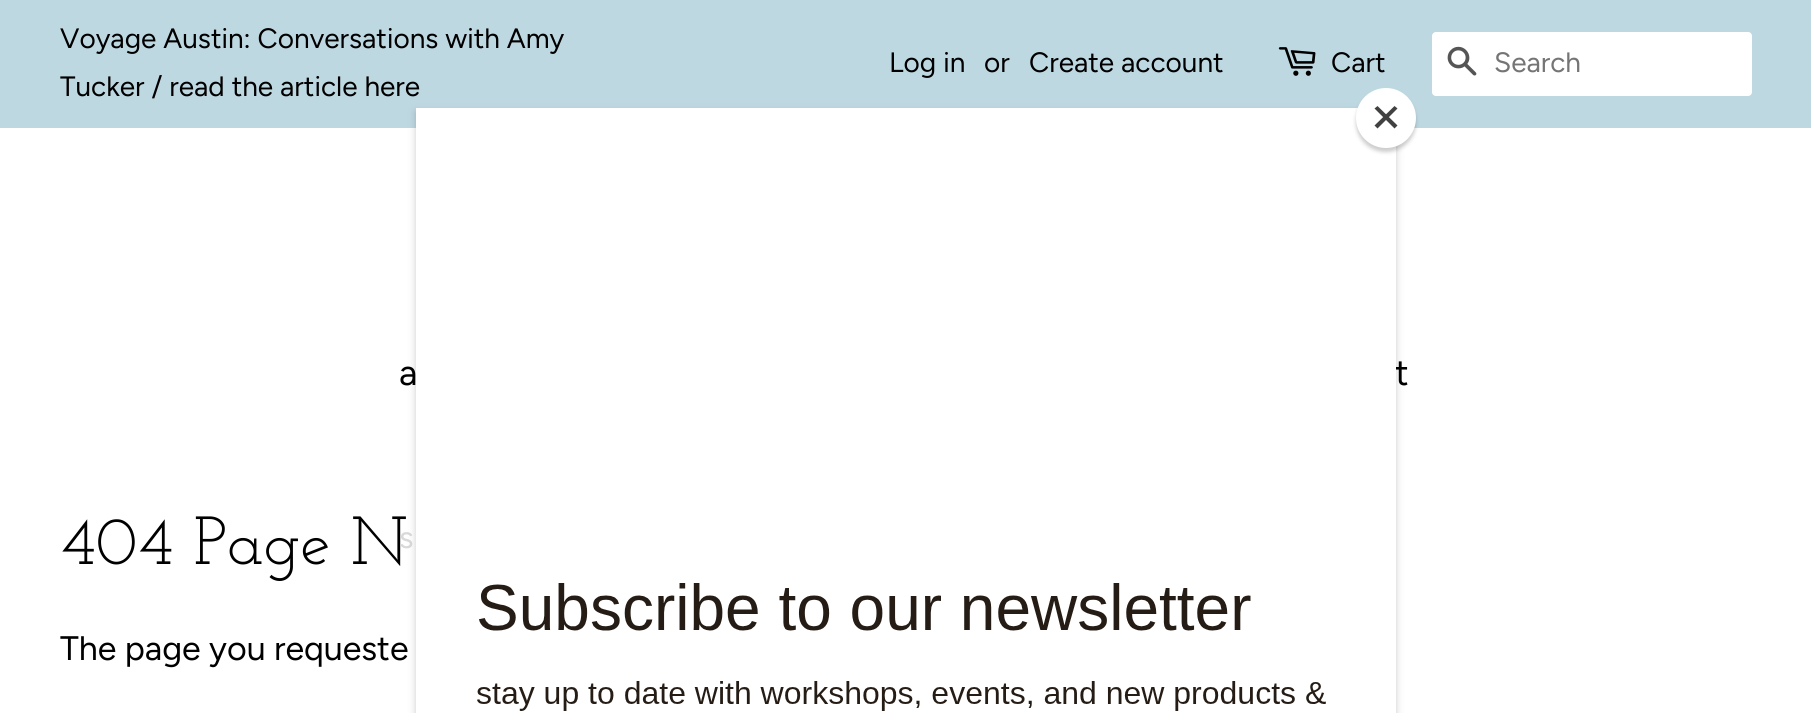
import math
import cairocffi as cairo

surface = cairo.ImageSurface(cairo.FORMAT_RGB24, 1811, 713)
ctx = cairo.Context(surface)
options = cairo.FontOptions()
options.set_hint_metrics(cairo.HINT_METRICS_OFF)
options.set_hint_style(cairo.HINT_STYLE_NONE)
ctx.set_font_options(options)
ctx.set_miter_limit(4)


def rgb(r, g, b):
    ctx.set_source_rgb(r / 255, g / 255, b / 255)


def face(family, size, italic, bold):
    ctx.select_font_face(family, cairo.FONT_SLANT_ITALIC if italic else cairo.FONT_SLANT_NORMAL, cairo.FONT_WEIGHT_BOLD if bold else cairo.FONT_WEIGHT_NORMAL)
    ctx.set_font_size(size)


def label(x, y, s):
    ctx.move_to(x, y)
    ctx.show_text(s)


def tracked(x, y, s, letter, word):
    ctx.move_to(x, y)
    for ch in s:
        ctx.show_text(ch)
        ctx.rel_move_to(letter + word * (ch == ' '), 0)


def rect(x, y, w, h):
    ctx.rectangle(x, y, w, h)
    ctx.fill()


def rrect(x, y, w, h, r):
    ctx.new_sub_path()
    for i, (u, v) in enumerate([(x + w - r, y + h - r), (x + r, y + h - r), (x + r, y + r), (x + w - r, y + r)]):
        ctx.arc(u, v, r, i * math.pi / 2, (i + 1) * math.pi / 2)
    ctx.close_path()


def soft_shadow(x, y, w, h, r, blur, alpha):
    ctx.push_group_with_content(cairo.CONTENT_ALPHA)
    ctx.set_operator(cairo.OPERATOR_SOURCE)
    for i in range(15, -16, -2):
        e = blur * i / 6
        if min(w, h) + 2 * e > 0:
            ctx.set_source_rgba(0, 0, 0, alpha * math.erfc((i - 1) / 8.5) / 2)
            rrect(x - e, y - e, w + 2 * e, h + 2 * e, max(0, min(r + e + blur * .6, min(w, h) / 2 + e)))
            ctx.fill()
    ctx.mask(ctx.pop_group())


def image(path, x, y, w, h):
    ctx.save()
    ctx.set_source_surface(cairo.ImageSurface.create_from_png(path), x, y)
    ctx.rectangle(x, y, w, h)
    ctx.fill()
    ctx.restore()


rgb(255, 255, 255)
ctx.paint()
rgb(190, 216, 226)
rect(0, 0, 1811, 128)
face('Figtree', 28, 0, 0)
rgb(0, 0, 0)
label(60, 48, 'Voyage Austin: Conversations with Amy')
label(60, 96, 'Tucker / read the article here')
label(889, 72, 'Log in')
label(984, 72, 'or')
label(1029, 72, 'Create account')
image('image0.png', 1278, 47, 38, 29)
label(1331, 72, 'Cart')
rgb(255, 255, 255)
rrect(1432, 32, 320, 64, 4)
ctx.fill()
image('image1.png', 1447, 46, 30, 30)
rgb(117, 117, 117)
label(1494, 72, 'Search')
face('Figtree', 36, 0, 0)
rgb(0, 0, 0)
tracked(399, 385, 'a', 4, 0)
face('Josefin Slab', 68, 0, 0)
label(60, 564, '404 Page N')
face('Figtree', 31, 0, 0)
rgb(217, 217, 217)
tracked(399, 548, 's', 4, 0)
face('Figtree', 36, 0, 0)
rgb(0, 0, 0)
tracked(1395, 385, 't', 4, 0)
face('Figtree', 34, 0, 0)
label(60, 660, 'The page you requeste')
ctx.save()
ctx.set_fill_rule(cairo.FILL_RULE_EVEN_ODD)
ctx.new_path()
ctx.move_to(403, 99)
ctx.line_to(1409, 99)
ctx.line_to(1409, 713)
ctx.line_to(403, 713)
ctx.close_path()
ctx.move_to(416, 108)
ctx.line_to(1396, 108)
ctx.line_to(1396, 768)
ctx.line_to(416, 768)
ctx.close_path()
ctx.clip()
rgb(0, 0, 0)
soft_shadow(416, 112, 980, 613, 0, 4, 0.2)
ctx.restore()
image('image2.png', 416, 108, 980, 603)
rgb(0, 0, 0)
soft_shadow(1356, 92, 60, 60, 30, 2, 0.2)
rgb(255, 255, 255)
ctx.arc(1386, 118, 30, 0, 2 * math.pi)
ctx.fill()
rgb(65, 65, 65)
ctx.new_path()
ctx.move_to(1394.5, 106)
ctx.line_to(1397.5, 108.5)
ctx.line_to(1377.5, 128.5)
ctx.line_to(1374.5, 125.5)
ctx.close_path()
ctx.fill()
ctx.new_path()
ctx.move_to(1374.5, 108.5)
ctx.line_to(1377.5, 106)
ctx.line_to(1397.5, 125.5)
ctx.line_to(1394.5, 128.5)
ctx.close_path()
ctx.fill()
surface.write_to_png('render.png')
